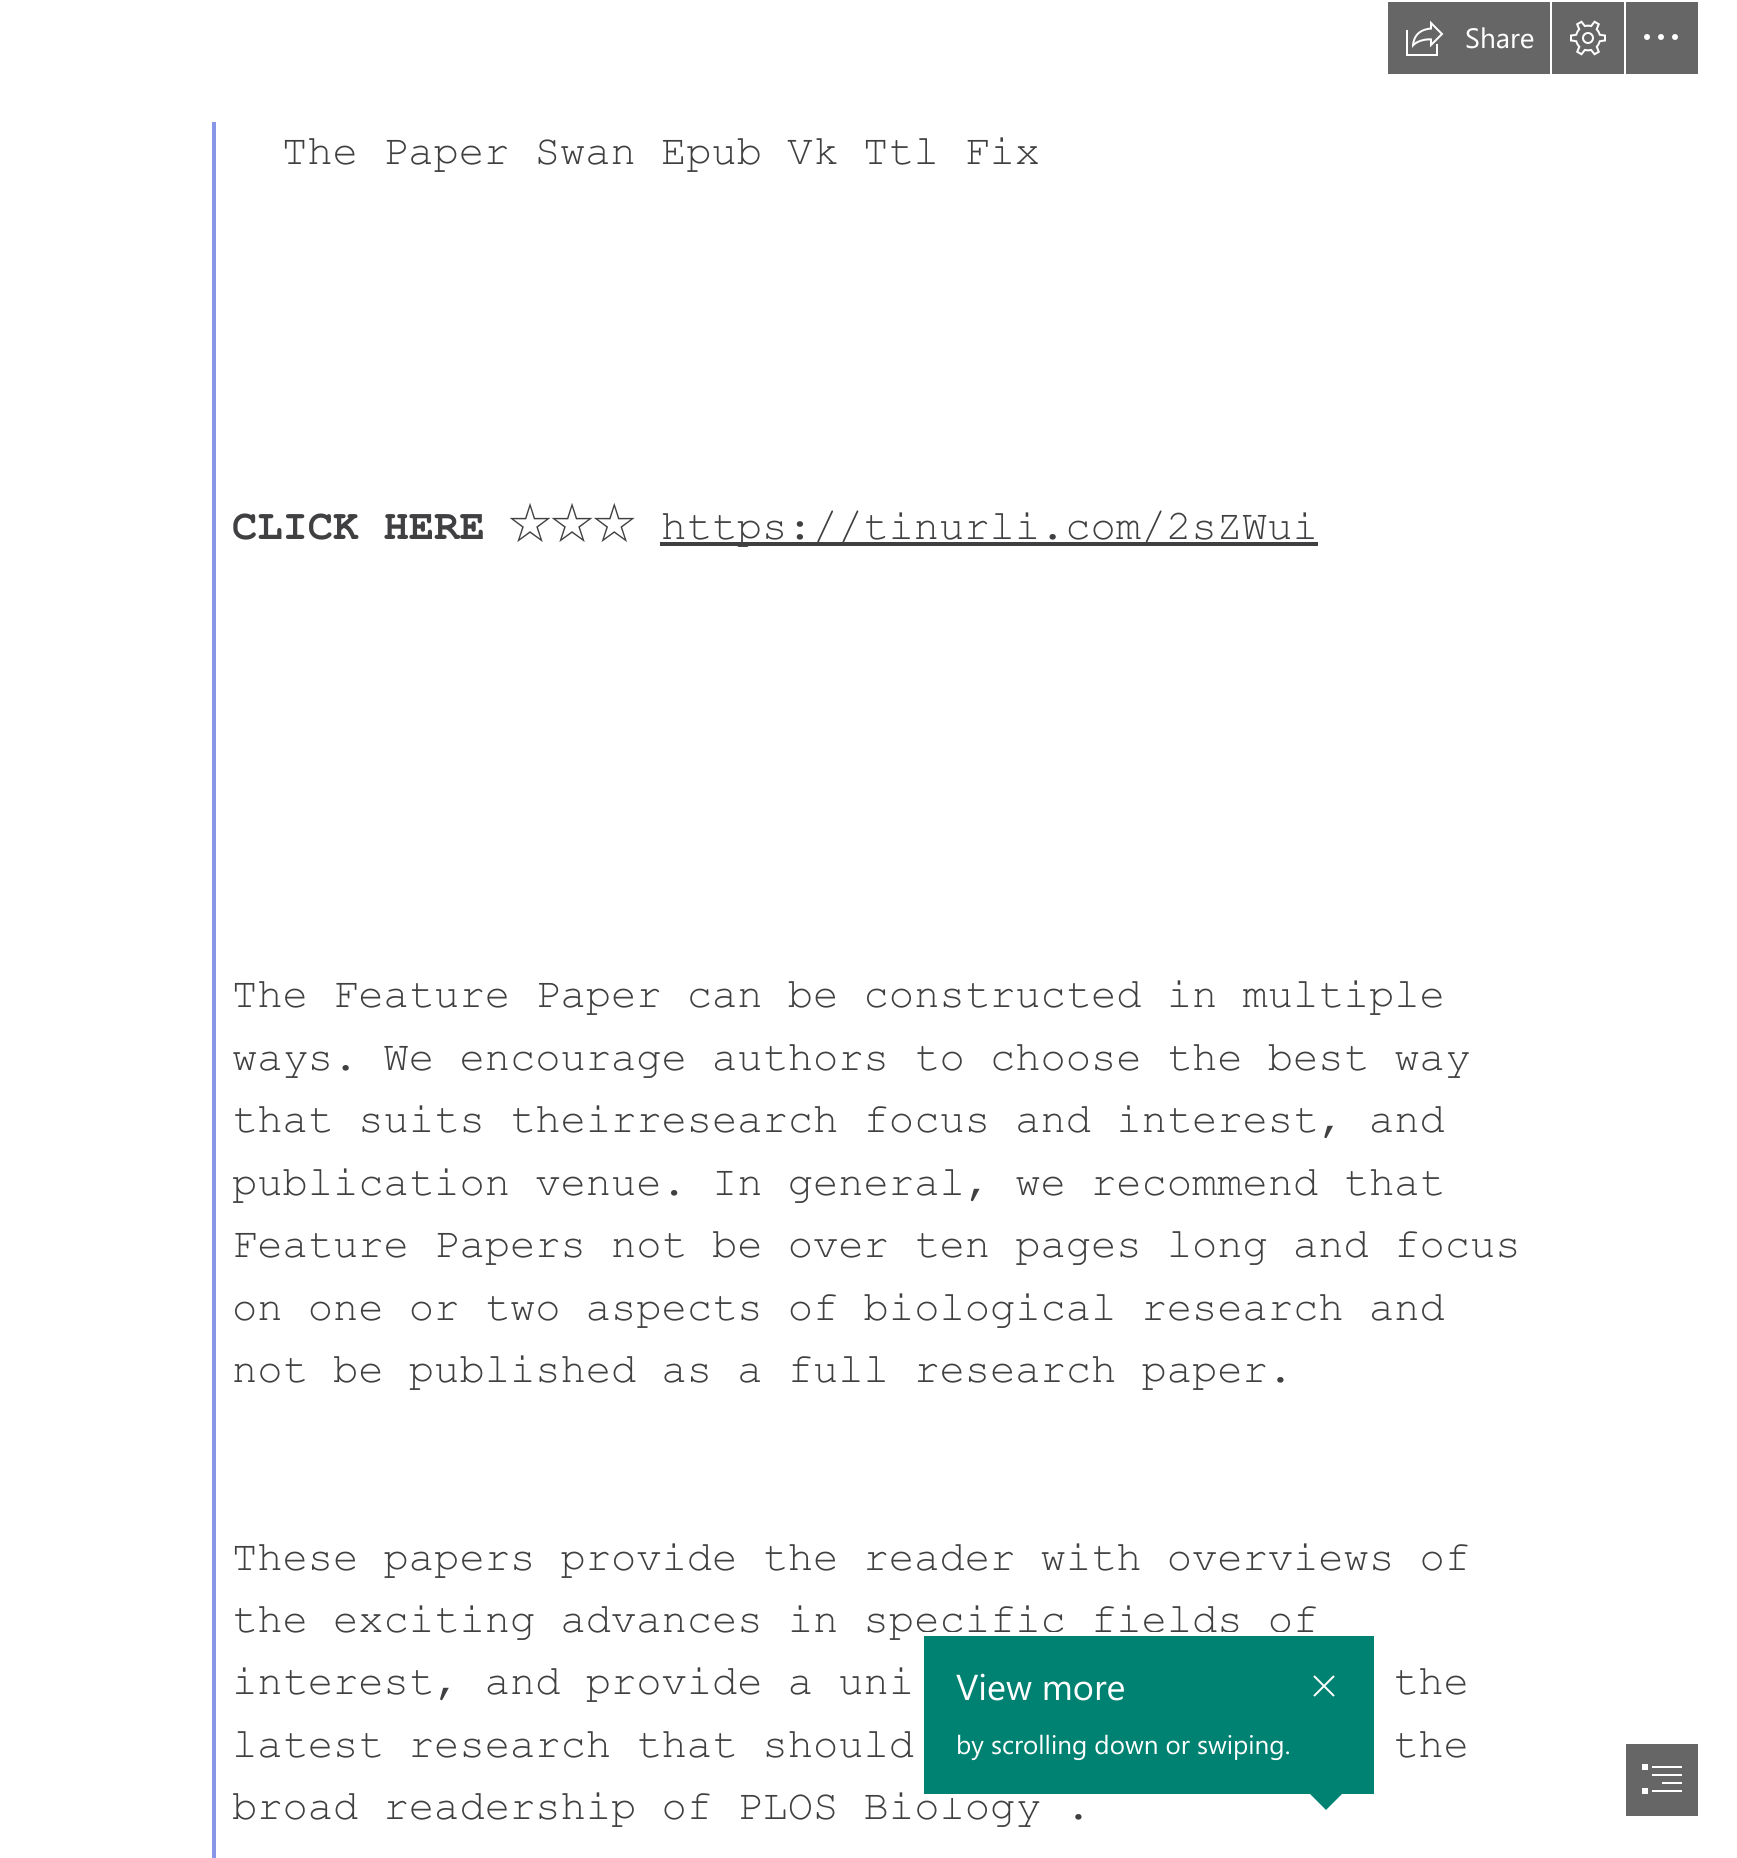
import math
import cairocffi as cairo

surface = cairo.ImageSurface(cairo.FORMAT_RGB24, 1737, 1858)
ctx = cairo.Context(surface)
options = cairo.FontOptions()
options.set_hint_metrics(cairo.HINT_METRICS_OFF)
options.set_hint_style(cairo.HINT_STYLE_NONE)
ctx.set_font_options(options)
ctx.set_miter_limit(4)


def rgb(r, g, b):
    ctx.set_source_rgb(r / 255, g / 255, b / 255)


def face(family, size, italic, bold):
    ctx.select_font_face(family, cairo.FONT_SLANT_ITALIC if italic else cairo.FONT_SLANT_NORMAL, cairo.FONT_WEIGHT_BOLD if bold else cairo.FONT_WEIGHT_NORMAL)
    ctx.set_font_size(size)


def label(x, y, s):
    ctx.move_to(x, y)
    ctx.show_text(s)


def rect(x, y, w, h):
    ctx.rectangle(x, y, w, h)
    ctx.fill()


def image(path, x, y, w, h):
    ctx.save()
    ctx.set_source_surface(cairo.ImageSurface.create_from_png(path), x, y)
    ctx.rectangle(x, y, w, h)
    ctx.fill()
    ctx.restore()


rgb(255, 255, 255)
ctx.paint()
rgb(102, 102, 102)
rect(1388, 2, 162, 72)
image('image0.png', 1406, 20, 38, 36)
face('Segoe UI', 28, 0, 0)
rgb(255, 255, 255)
label(1465, 48, 'Share')
rgb(102, 102, 102)
rect(1552, 2, 72, 72)
image('image1.png', 1570, 20, 36, 36)
rect(1626, 2, 72, 72)
image('image2.png', 1644, 34, 34, 6)
rgb(135, 150, 231)
rect(212, 122, 4, 1736)
face('Courier New', 42.1, 0, 0)
rgb(64, 63, 65)
label(282, 164, 'The Paper Swan Epub Vk Ttl Fix')
face('Courier New', 42.1, 0, 1)
label(232, 539, 'CLICK HERE')
face('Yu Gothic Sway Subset', 42.1, 0, 0)
label(509, 539, '☆☆☆')
rect(660, 542, 658, 4)
face('Courier New', 42.1, 0, 0)
label(661, 539, 'https://tinurli.com/2sZWui')
label(232, 1007, 'The Feature Paper can be constructed in multiple')
label(232, 1070, 'ways. We encourage authors to choose the best way')
label(232, 1132, 'that suits theirresearch focus and interest, and')
label(232, 1195, 'publication venue. In general, we recommend that')
label(232, 1257, 'Feature Papers not be over ten pages long and focus')
label(232, 1320, 'on one or two aspects of biological research and')
label(232, 1382, 'not be published as a full research paper.')
label(232, 1570, 'These papers provide the reader with overviews of')
label(232, 1632, 'the exciting advances in specific fields of')
label(232, 1694, 'interest, and provide a uni')
label(1393, 1694, 'the')
label(232, 1757, 'latest research that should')
label(1393, 1757, 'the')
label(232, 1819, 'broad readership of PLOS Biology .')
rgb(0, 130, 114)
ctx.rectangle(922, 1634, 454, 162)
ctx.fill_preserve()
rgb(255, 255, 255)
ctx.set_line_width(4)
ctx.stroke()
face('Segoe UI', 36, 0, 0)
label(956, 1700, 'View more')
face('Segoe UI', 26, 0, 0)
label(956, 1754, 'by scrolling down or swiping.')
image('image3.png', 1313, 1675, 22, 22)
rgb(0, 130, 114)
ctx.new_path()
ctx.move_to(1310, 1794)
ctx.line_to(1342, 1794)
ctx.line_to(1326, 1810)
ctx.close_path()
ctx.fill()
rgb(102, 102, 102)
rect(1626, 1744, 72, 72)
image('image4.png', 1642, 1764, 40, 30)
surface.write_to_png('render.png')
